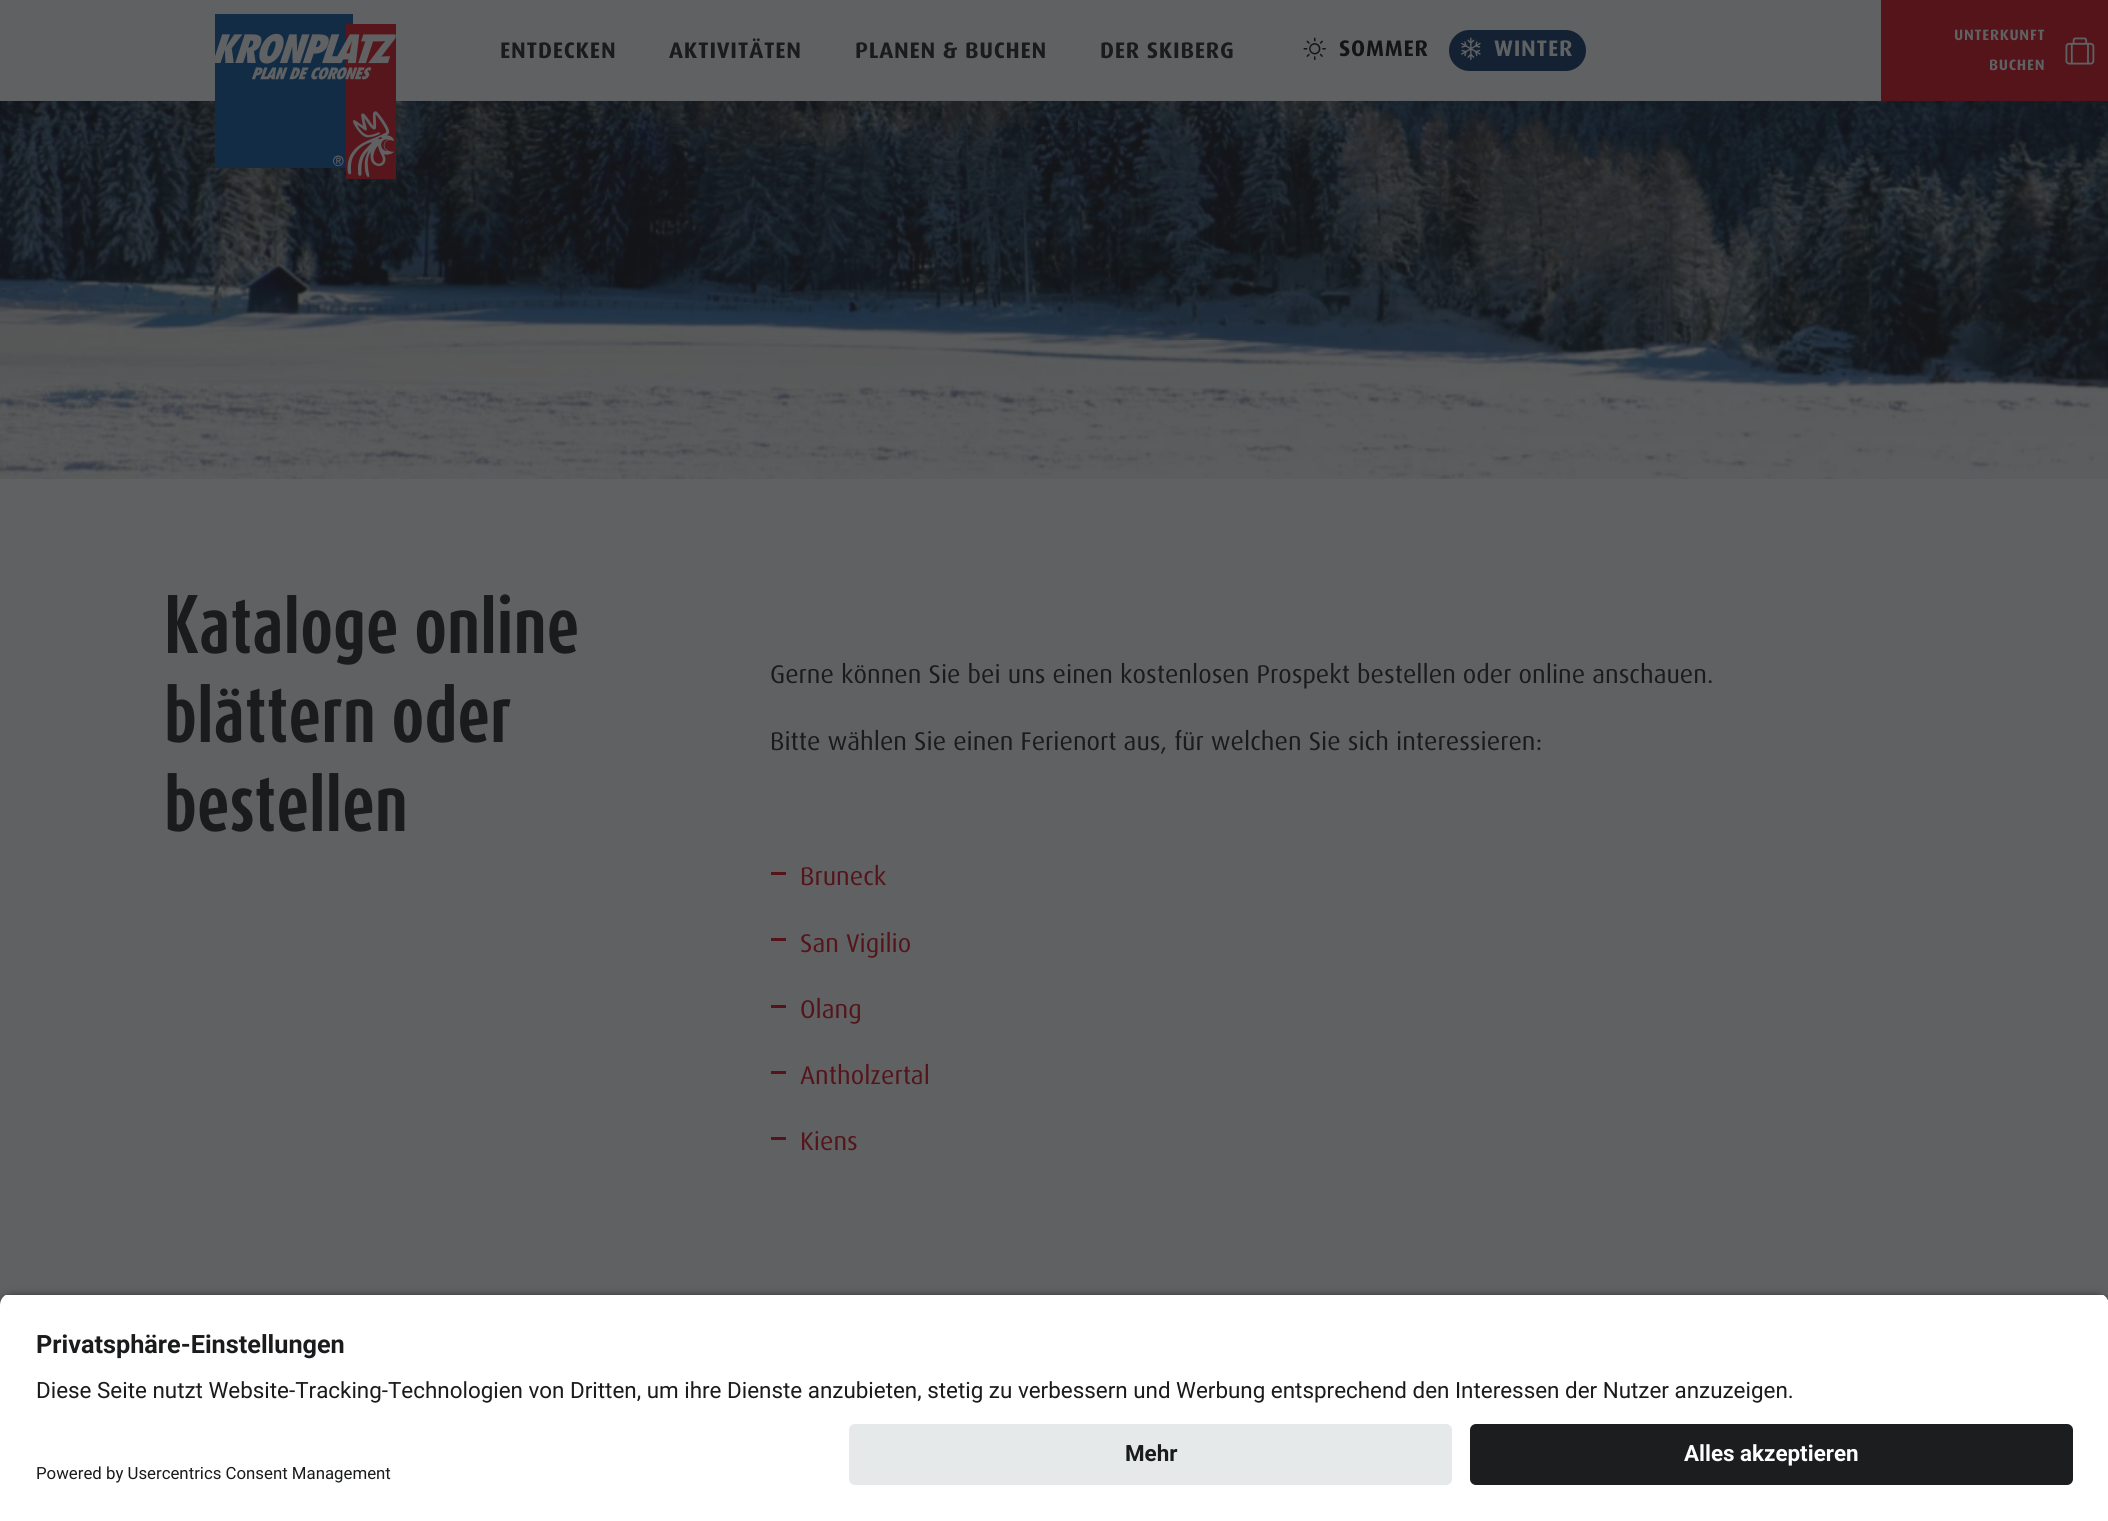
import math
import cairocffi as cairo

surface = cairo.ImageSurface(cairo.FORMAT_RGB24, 2108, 1521)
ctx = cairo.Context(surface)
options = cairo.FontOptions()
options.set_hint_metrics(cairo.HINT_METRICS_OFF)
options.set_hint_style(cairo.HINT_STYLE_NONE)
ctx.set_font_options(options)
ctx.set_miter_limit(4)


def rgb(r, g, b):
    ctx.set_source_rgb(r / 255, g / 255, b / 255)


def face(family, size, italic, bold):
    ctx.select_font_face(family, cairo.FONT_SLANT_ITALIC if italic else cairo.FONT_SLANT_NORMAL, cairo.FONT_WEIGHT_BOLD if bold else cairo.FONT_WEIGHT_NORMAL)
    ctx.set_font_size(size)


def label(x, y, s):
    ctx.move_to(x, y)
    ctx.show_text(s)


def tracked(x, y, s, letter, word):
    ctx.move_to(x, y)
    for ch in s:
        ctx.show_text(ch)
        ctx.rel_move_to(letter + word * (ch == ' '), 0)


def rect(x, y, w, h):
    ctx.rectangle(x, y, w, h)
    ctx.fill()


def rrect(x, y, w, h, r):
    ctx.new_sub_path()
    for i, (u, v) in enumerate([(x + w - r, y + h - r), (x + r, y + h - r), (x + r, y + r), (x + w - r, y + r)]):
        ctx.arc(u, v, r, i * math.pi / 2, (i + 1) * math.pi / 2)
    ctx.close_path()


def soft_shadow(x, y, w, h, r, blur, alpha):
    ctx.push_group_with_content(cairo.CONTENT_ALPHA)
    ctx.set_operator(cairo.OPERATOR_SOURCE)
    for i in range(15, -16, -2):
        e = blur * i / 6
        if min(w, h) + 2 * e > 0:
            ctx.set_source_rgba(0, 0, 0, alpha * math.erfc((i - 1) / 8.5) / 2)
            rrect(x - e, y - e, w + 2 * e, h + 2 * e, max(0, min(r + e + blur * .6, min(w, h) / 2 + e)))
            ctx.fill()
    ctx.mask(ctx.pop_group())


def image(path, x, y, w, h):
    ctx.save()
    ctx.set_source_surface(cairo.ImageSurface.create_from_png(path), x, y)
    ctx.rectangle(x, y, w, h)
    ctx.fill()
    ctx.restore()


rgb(255, 255, 255)
ctx.paint()
image('image4.png', 0, 101, 2108, 378)
rgb(19, 20, 22)
soft_shadow(0, 15, 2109, 101, 0, 22.5, 0.1)
rgb(95, 97, 98)
rect(0, 0, 1881, 101)
image('image0.png', 215, 14, 181, 165)
face('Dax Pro', 22.5, 0, 1)
rgb(25, 27, 29)
tracked(500, 58, 'ENTDECKEN', 0.75, 0)
tracked(669, 58, 'AKTIVITÄTEN', 0.75, 0)
tracked(855, 58, 'PLANEN & BUCHEN', 0.75, 0)
tracked(1100, 58, 'DER SKIBERG', 0.75, 0)
image('image1.png', 1303, 37, 23, 23)
rgb(19, 20, 22)
tracked(1339, 56, 'SOMMER', 0.75, 0)
rgb(19, 33, 50)
rrect(1449, 30, 137, 41, 20.5)
ctx.fill()
image('image2.png', 1461, 37, 20, 23)
rgb(95, 97, 98)
tracked(1494, 56, 'WINTER', 0.75, 0)
rgb(84, 20, 26)
rect(1881, 0, 227, 101)
face('Dax Pro', 15, 0, 1)
rgb(95, 97, 98)
tracked(1954, 40, 'UNTERKUNFT', 0.75, 0)
tracked(1989, 70, 'BUCHEN', 0.75, 0)
image('image3.png', 2065, 37, 30, 28)
rect(0, 479, 2108, 826)
face('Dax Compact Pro', 69, 0, 1)
rgb(25, 27, 29)
label(164, 653, 'Kataloge online')
label(164, 742, 'blättern oder')
label(164, 831, 'bestellen')
face('Dax Pro', 25.6, 0, 0)
label(770, 683, 'Gerne können Sie bei uns einen kostenlosen Prospekt bestellen oder online anschauen.')
label(770, 750, 'Bitte wählen Sie einen Ferienort aus, für welchen Sie sich interessieren:')
rgb(84, 20, 26)
rect(771, 872, 15, 3)
label(800, 885, 'Bruneck')
rect(771, 938, 15, 3)
label(800, 952, 'San Vigilio')
rect(771, 1005, 15, 3)
label(800, 1018, 'Olang')
rect(771, 1071, 15, 3)
label(800, 1084, 'Antholzertal')
rect(771, 1137, 15, 3)
label(800, 1150, 'Kiens')
rgb(0, 0, 0)
soft_shadow(0, 1298, 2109, 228, 12, 5, 0.8)
ctx.save()
ctx.new_path()
ctx.move_to(12, 1293)
ctx.line_to(2097, 1293)
ctx.curve_to(2103.5, 1293, 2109, 1298.5, 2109, 1305)
ctx.line_to(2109, 1412)
ctx.line_to(0, 1412)
ctx.line_to(0, 1305)
ctx.curve_to(0, 1298.5, 5.5, 1293, 12, 1293)
ctx.close_path()
ctx.clip()
rgb(255, 255, 255)
rect(0, 1295, 2108, 117)
ctx.restore()
face('Roboto', 25.25, 0, 1)
rgb(25, 27, 29)
label(36, 1353, 'Privatsphäre-Einstellungen')
face('Roboto', 22.4, 0, 0)
label(36, 1398, 'Diese Seite nutzt Website-Tracking-Technologien von Dritten, um ihre Dienste anzubieten, stetig zu verbessern und Werbung entsprechend den Interessen der Nutzer anzuzeigen.')
rgb(255, 255, 255)
rect(0, 1412, 2108, 109)
rgb(229, 233, 234)
rrect(849, 1424, 603, 61, 6)
ctx.fill()
face('Roboto', 22.4, 0, 1)
rgb(25, 27, 29)
label(1125, 1461, 'Mehr')
rgb(27, 29, 31)
rrect(1470, 1424, 603, 61, 6)
ctx.fill()
rgb(255, 255, 255)
label(1684, 1461, 'Alles akzeptieren')
face('Roboto', 16.8, 0, 0)
rgb(25, 27, 29)
label(36, 1479, 'Powered by Usercentrics Consent Management')
surface.write_to_png('render.png')
